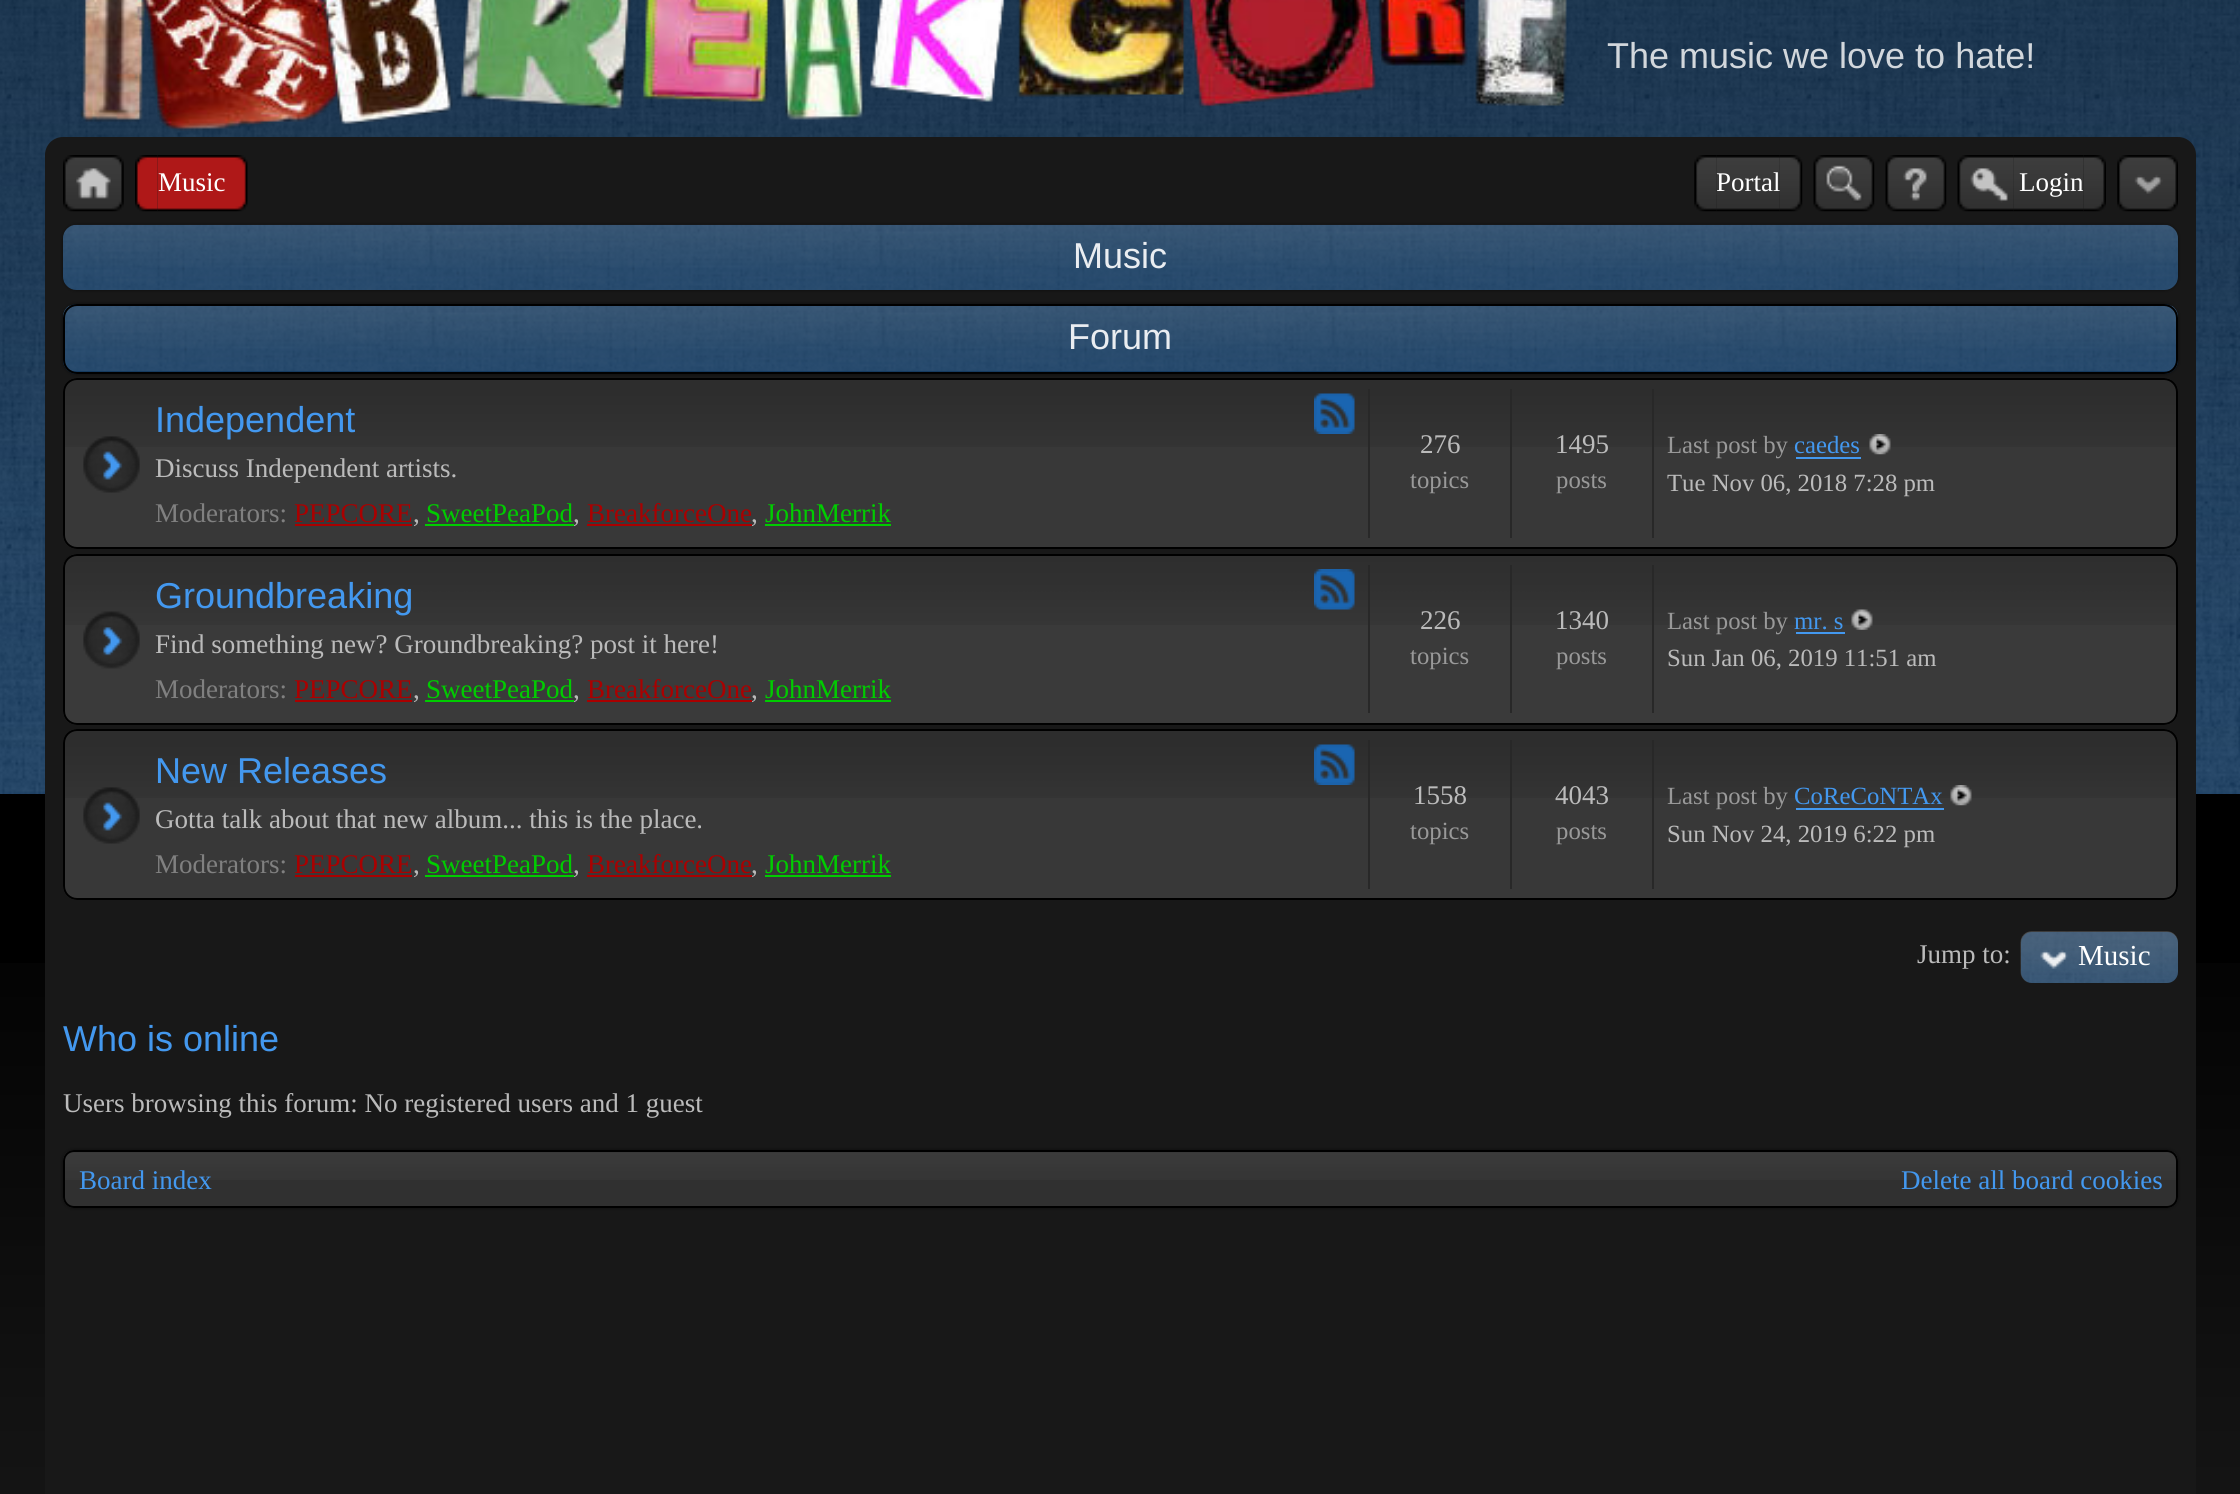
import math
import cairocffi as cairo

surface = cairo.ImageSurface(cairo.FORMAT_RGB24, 2240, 1494)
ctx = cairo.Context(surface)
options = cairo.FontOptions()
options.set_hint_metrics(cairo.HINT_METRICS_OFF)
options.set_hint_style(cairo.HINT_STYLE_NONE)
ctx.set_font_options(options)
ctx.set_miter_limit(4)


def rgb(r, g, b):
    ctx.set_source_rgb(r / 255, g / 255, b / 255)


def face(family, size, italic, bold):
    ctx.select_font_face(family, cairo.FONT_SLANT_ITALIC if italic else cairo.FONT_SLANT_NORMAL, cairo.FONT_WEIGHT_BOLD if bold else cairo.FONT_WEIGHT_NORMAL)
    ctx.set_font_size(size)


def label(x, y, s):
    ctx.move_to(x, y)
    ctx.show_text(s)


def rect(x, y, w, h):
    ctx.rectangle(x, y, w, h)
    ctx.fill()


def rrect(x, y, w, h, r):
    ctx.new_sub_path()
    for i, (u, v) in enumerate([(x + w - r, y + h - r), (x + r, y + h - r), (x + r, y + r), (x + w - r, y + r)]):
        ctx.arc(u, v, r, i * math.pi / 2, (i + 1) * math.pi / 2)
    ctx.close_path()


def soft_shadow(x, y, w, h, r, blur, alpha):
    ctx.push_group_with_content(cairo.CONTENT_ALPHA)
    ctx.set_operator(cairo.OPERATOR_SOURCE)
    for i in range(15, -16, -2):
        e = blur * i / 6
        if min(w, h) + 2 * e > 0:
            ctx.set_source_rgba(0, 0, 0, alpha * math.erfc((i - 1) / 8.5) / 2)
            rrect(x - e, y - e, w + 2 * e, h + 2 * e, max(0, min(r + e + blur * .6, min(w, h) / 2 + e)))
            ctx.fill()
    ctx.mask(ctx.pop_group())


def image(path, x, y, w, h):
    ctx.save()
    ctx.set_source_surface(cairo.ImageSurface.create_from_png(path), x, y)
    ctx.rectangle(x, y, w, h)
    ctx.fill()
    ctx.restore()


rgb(22, 59, 96)
ctx.paint()
image('image0.png', 0, 0, 2240, 794)
rgb(0, 0, 0)
rect(0, 794, 2240, 700)
image('image1.png', 0, 963, 2240, 531)
image('image2.png', 80, 0, 1487, 131)
face('Liberation Sans', 36, 0, 0)
rgb(210, 215, 220)
label(1607, 68, 'The music we love to hate!')
rgb(24, 24, 24)
rrect(45, 137, 2151, 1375, 18)
ctx.fill()
image('image3.png', 63, 155, 61, 57)
image('image4.png', 157, 155, 68, 57)
image('image5.png', 135, 155, 23, 57)
face('Liberation Serif', 27, 0, 0)
rgb(255, 255, 255)
label(158, 191, 'Music')
image('image6.png', 225, 155, 23, 57)
image('image7.png', 1716, 155, 64, 57)
label(1716, 191, 'Portal')
image('image8.png', 1694, 155, 23, 57)
image('image9.png', 1779, 155, 24, 57)
image('image10.png', 1813, 155, 62, 57)
image('image11.png', 1885, 155, 62, 57)
image('image12.png', 2013, 155, 71, 57)
image('image13.png', 1957, 155, 57, 57)
label(2019, 191, 'Login')
image('image14.png', 2083, 155, 23, 57)
image('image15.png', 2117, 155, 61, 57)
rgb(0, 0, 0)
soft_shadow(63, 225, 2115, 65, 14, 2, 0.5)
image('image16.png', 63, 224, 2115, 66)
face('Liberation Sans', 36, 0, 0)
rgb(234, 237, 241)
label(1073, 268, 'Music')
rgb(0, 0, 0)
soft_shadow(63, 304, 2115, 70, 14, 2, 0.5)
rgb(22, 59, 96)
rrect(63, 304, 2115, 70, 14)
ctx.fill()
image('image17.png', 63, 305, 2115, 66)
rrect(64, 305, 2113, 68, 13)
rgb(0, 0, 0)
ctx.stroke()
rgb(234, 237, 241)
label(1068, 349, 'Forum')
rgb(56, 56, 56)
rrect(63, 378, 2115, 171, 14)
ctx.fill()
image('image18.png', 63, 380, 2115, 67)
rrect(64, 379, 2113, 169, 13)
rgb(0, 0, 0)
ctx.stroke()
image('image19.png', 83, 436, 57, 57)
rgb(67, 152, 239)
label(155, 432, 'Independent')
image('image20.png', 1314, 393, 41, 41)
face('Liberation Serif', 27, 0, 0)
rgb(187, 187, 187)
label(155, 477, 'Discuss Independent artists.')
rgb(128, 128, 128)
label(155, 522, 'Moderators:')
rgb(170, 0, 0)
label(294, 522, 'PEPCORE')
rect(295, 524, 117, 2)
rgb(187, 187, 187)
label(413, 522, ',')
rgb(0, 204, 0)
label(426, 522, 'SweetPeaPod')
rect(425, 524, 149, 2)
rgb(187, 187, 187)
label(573, 522, ',')
rgb(170, 0, 0)
label(587, 522, 'BreakforceOne')
rect(587, 524, 165, 2)
rgb(187, 187, 187)
label(751, 522, ',')
rgb(0, 204, 0)
label(765, 522, 'JohnMerrik')
rect(765, 524, 126, 2)
rgb(40, 40, 40)
rect(1368, 389, 2, 149)
rgb(187, 187, 187)
label(1420, 453, '276')
face('Liberation Serif', 24.75, 0, 0)
rgb(153, 153, 153)
label(1410, 488, 'topics')
rgb(40, 40, 40)
rect(1510, 389, 2, 149)
face('Liberation Serif', 27, 0, 0)
rgb(187, 187, 187)
label(1555, 453, '1495')
face('Liberation Serif', 24.75, 0, 0)
rgb(153, 153, 153)
label(1556, 488, 'posts')
rgb(40, 40, 40)
rect(1652, 389, 2, 149)
rgb(153, 153, 153)
label(1667, 453, 'Last post by')
rgb(67, 152, 239)
label(1794, 453, 'caedes')
rect(1796, 457, 65, 2)
image('image21.png', 1869, 434, 22, 21)
rgb(187, 187, 187)
label(1667, 491, 'Tue Nov 06, 2018 7:28 pm')
rgb(58, 58, 58)
rrect(63, 554, 2115, 171, 14)
ctx.fill()
image('image22.png', 63, 555, 2115, 70)
rrect(64, 555, 2113, 169, 13)
rgb(0, 0, 0)
ctx.stroke()
image('image23.png', 83, 611, 57, 58)
face('Liberation Sans', 36, 0, 0)
rgb(67, 152, 239)
label(155, 608, 'Groundbreaking')
image('image24.png', 1314, 569, 41, 41)
face('Liberation Serif', 27, 0, 0)
rgb(187, 187, 187)
label(155, 653, 'Find something new? Groundbreaking? post it here!')
rgb(128, 128, 128)
label(155, 698, 'Moderators:')
rgb(170, 0, 0)
label(294, 698, 'PEPCORE')
rect(295, 700, 117, 2)
rgb(187, 187, 187)
label(413, 698, ',')
rgb(0, 204, 0)
label(426, 698, 'SweetPeaPod')
rect(425, 700, 149, 2)
rgb(187, 187, 187)
label(573, 698, ',')
rgb(170, 0, 0)
label(587, 698, 'BreakforceOne')
rect(587, 700, 165, 2)
rgb(187, 187, 187)
label(751, 698, ',')
rgb(0, 204, 0)
label(765, 698, 'JohnMerrik')
rect(765, 700, 126, 2)
rgb(40, 40, 40)
rect(1368, 565, 2, 148)
rgb(187, 187, 187)
label(1420, 629, '226')
face('Liberation Serif', 24.75, 0, 0)
rgb(153, 153, 153)
label(1410, 664, 'topics')
rgb(40, 40, 40)
rect(1510, 565, 2, 148)
face('Liberation Serif', 27, 0, 0)
rgb(187, 187, 187)
label(1555, 629, '1340')
face('Liberation Serif', 24.75, 0, 0)
rgb(153, 153, 153)
label(1556, 664, 'posts')
rgb(40, 40, 40)
rect(1652, 565, 2, 148)
rgb(153, 153, 153)
label(1667, 629, 'Last post by')
rgb(67, 152, 239)
label(1794, 629, 'mr. s')
rect(1796, 632, 49, 2)
image('image25.png', 1851, 609, 22, 21)
rgb(187, 187, 187)
label(1667, 666, 'Sun Jan 06, 2019 11:51 am')
rgb(56, 56, 56)
rrect(63, 729, 2115, 171, 14)
ctx.fill()
image('image26.png', 63, 731, 2115, 67)
rrect(64, 730, 2113, 169, 13)
rgb(0, 0, 0)
ctx.stroke()
image('image19.png', 83, 787, 57, 57)
face('Liberation Sans', 36, 0, 0)
rgb(67, 152, 239)
label(155, 783, 'New Releases')
image('image27.png', 1314, 744, 41, 41)
face('Liberation Serif', 27, 0, 0)
rgb(187, 187, 187)
label(155, 828, 'Gotta talk about that new album... this is the place.')
rgb(128, 128, 128)
label(155, 873, 'Moderators:')
rgb(170, 0, 0)
label(294, 873, 'PEPCORE')
rect(295, 875, 117, 2)
rgb(187, 187, 187)
label(413, 873, ',')
rgb(0, 204, 0)
label(426, 873, 'SweetPeaPod')
rect(425, 875, 149, 2)
rgb(187, 187, 187)
label(573, 873, ',')
rgb(170, 0, 0)
label(587, 873, 'BreakforceOne')
rect(587, 875, 165, 2)
rgb(187, 187, 187)
label(751, 873, ',')
rgb(0, 204, 0)
label(765, 873, 'JohnMerrik')
rect(765, 875, 126, 2)
rgb(40, 40, 40)
rect(1368, 740, 2, 149)
rgb(187, 187, 187)
label(1413, 804, '1558')
face('Liberation Serif', 24.75, 0, 0)
rgb(153, 153, 153)
label(1410, 839, 'topics')
rgb(40, 40, 40)
rect(1510, 740, 2, 149)
face('Liberation Serif', 27, 0, 0)
rgb(187, 187, 187)
label(1555, 804, '4043')
face('Liberation Serif', 24.75, 0, 0)
rgb(153, 153, 153)
label(1556, 839, 'posts')
rgb(40, 40, 40)
rect(1652, 740, 2, 149)
rgb(153, 153, 153)
label(1667, 804, 'Last post by')
rgb(67, 152, 239)
label(1794, 804, 'CoReCoNTAx')
rect(1796, 808, 148, 2)
image('image21.png', 1950, 785, 22, 21)
rgb(187, 187, 187)
label(1667, 842, 'Sun Nov 24, 2019 6:22 pm')
face('Liberation Serif', 27, 0, 0)
label(1917, 963, 'Jump to:')
rgb(22, 59, 96)
rrect(2021, 932, 157, 51, 11)
ctx.fill()
image('image28.png', 2020, 931, 158, 52)
image('image29.png', 2040, 950, 28, 19)
face('Liberation Serif', 29, 0, 0)
rgb(255, 255, 255)
label(2078, 965, 'Music')
face('Liberation Sans', 36, 0, 0)
rgb(67, 152, 239)
label(63, 1051, 'Who is online')
face('Liberation Serif', 27, 0, 0)
rgb(187, 187, 187)
label(63, 1112, 'Users browsing this forum: No registered users and 1 guest')
rgb(0, 0, 0)
soft_shadow(63, 1150, 2115, 58, 11, 2, 0.5)
rgb(48, 48, 48)
rrect(63, 1150, 2115, 58, 11)
ctx.fill()
image('image30.png', 63, 1152, 2115, 28)
rrect(64, 1151, 2113, 56, 10)
rgb(0, 0, 0)
ctx.stroke()
rgb(67, 152, 239)
label(79, 1189, 'Board index')
label(1901, 1189, 'Delete all board cookies')
surface.write_to_png('render.png')
